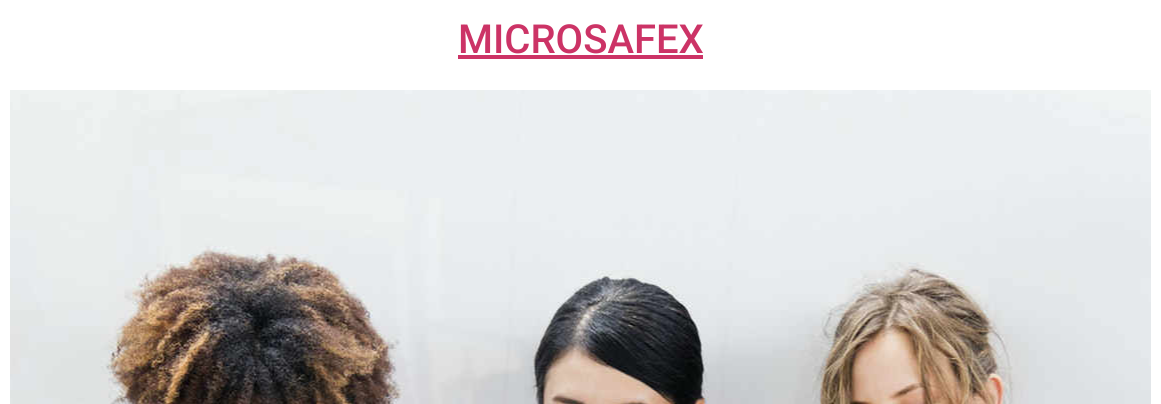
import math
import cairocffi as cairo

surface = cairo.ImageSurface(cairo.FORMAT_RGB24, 1161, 404)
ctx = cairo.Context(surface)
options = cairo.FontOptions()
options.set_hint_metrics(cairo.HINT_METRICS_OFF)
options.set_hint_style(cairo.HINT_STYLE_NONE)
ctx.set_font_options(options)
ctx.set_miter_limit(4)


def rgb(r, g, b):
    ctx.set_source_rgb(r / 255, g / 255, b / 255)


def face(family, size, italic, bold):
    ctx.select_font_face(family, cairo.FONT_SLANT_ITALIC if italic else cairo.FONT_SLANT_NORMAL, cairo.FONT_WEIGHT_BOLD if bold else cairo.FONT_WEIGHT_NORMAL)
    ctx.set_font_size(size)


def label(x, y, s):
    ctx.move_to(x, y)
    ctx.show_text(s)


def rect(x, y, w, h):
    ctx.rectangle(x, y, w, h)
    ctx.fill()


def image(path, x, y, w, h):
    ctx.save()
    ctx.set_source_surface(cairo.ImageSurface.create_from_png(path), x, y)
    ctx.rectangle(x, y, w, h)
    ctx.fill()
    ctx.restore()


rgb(255, 255, 255)
ctx.paint()
face('Roboto Medium', 40, 0, 0)
rgb(204, 51, 102)
label(458, 53, 'MICROSAFEX')
rect(458, 55, 245, 4)
image('image0.png', 10, 90, 1141, 314)
surface.write_to_png('render.png')
